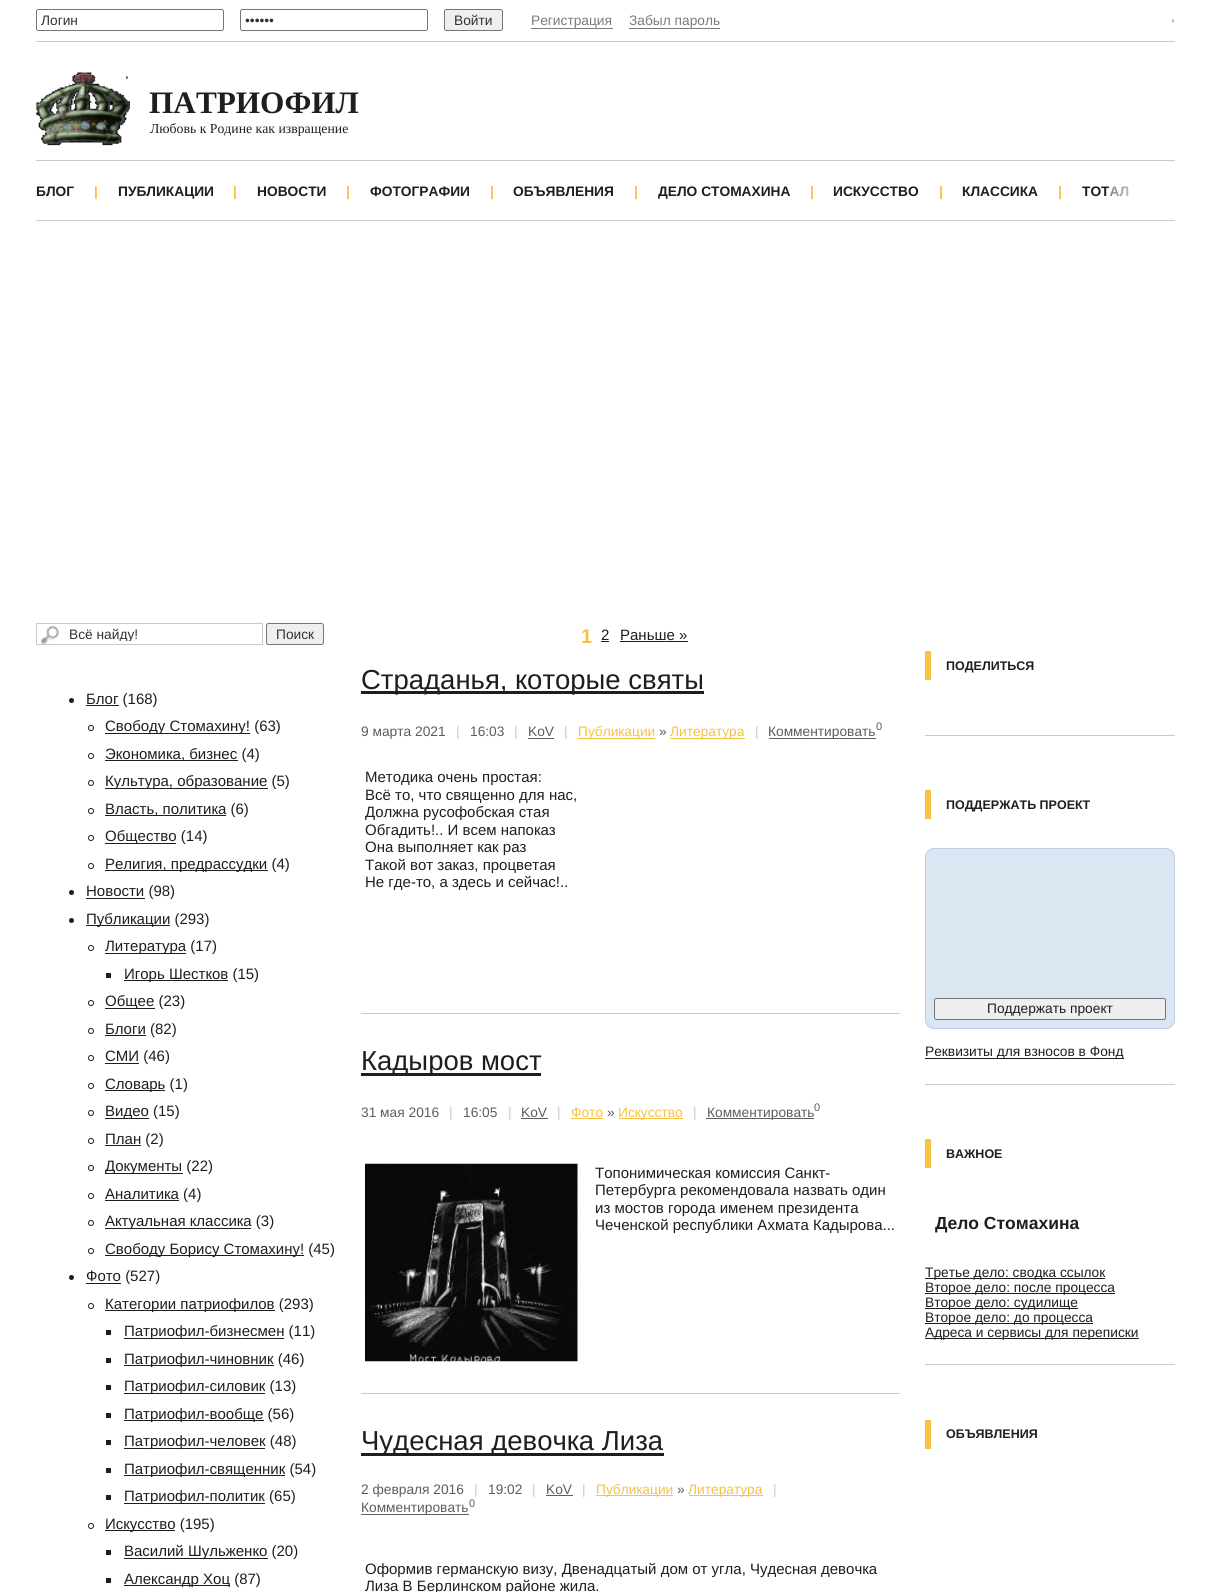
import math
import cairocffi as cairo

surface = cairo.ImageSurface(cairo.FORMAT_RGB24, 1211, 1592)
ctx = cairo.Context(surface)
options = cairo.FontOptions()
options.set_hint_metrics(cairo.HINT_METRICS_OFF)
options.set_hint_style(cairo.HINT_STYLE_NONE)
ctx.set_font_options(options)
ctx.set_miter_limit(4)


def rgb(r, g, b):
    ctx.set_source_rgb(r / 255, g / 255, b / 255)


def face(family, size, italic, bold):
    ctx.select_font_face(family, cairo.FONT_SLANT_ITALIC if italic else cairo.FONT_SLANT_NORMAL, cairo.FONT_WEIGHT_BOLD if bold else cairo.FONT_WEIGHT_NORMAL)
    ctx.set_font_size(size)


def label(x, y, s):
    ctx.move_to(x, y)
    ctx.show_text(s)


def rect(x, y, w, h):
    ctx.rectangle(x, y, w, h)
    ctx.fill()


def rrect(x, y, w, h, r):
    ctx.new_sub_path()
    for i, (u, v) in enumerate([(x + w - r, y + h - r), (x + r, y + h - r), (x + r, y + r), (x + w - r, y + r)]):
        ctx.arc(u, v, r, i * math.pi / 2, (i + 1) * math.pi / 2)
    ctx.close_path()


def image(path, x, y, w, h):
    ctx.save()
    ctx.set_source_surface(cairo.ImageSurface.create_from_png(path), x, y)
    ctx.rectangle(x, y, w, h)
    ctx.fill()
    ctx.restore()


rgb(255, 255, 255)
ctx.paint()
rgb(201, 201, 201)
rect(36, 41, 1139, 1)
rrect(36.5, 9.5, 187, 21, 2)
rgb(118, 118, 118)
ctx.set_line_width(1)
ctx.stroke()
face('Liberation Sans', 13.75, 0, 0)
rgb(51, 50, 50)
label(41, 25, 'Логин')
rrect(240.5, 9.5, 187, 21, 2)
rgb(118, 118, 118)
ctx.stroke()
rgb(51, 50, 50)
label(245, 25, '••••••')
rgb(239, 239, 239)
rrect(444.5, 9.5, 58, 21, 2)
ctx.fill_preserve()
rgb(118, 118, 118)
ctx.stroke()
rgb(51, 50, 50)
label(454, 25, 'Войти')
rgb(123, 123, 123)
label(531, 25, 'Регистрация')
rect(531, 28, 82, 1)
label(629, 25, 'Забыл пароль')
rect(629, 28, 91, 1)
label(1171, 21, ',')
image('image0.png', 36, 72, 94, 74)
face('Liberation Serif', 31.25, 0, 1)
rgb(30, 30, 30)
label(149, 113, 'ПАТРИОФИЛ')
face('Liberation Serif', 13.75, 0, 0)
label(150, 133, 'Любовь к Родине как извращение')
rgb(201, 201, 201)
rect(36, 160, 1139, 1)
rect(36, 220, 1139, 1)
face('Liberation Sans', 13.75, 0, 1)
rgb(30, 30, 30)
label(36, 196, 'БЛОГ')
rgb(245, 194, 66)
label(94, 196, '|')
rgb(30, 30, 30)
label(118, 196, 'ПУБЛИКАЦИИ')
rgb(245, 194, 66)
label(233, 196, '|')
rgb(30, 30, 30)
label(257, 196, 'НОВОСТИ')
rgb(245, 194, 66)
label(346, 196, '|')
rgb(30, 30, 30)
label(370, 196, 'ФОТОГРАФИИ')
rgb(245, 194, 66)
label(490, 196, '|')
rgb(30, 30, 30)
label(513, 196, 'ОБЪЯВЛЕНИЯ')
rgb(245, 194, 66)
label(634, 196, '|')
rgb(30, 30, 30)
label(658, 196, 'ДЕЛО СТОМАХИНА')
rgb(245, 194, 66)
label(810, 196, '|')
rgb(30, 30, 30)
label(833, 196, 'ИСКУССТВО')
rgb(245, 194, 66)
label(939, 196, '|')
rgb(30, 30, 30)
label(962, 196, 'КЛАССИКА')
rgb(245, 194, 66)
label(1058, 196, '|')
rgb(30, 30, 30)
label(1082, 196, 'ТОТАЛ')
image('image1.png', 1108, 186, 67, 11)
image('image2.png', 41, 626, 18, 18)
ctx.rectangle(36.5, 623.5, 226, 21)
rgb(201, 201, 201)
ctx.stroke()
ctx.save()
ctx.rectangle(69, 626, 192, 15)
ctx.clip()
face('Liberation Sans', 13.75, 0, 0)
rgb(51, 50, 50)
label(69, 639, 'Всё найду!')
ctx.restore()
rgb(239, 239, 239)
rrect(266.5, 623.5, 57, 21, 2)
ctx.fill_preserve()
rgb(118, 118, 118)
ctx.stroke()
face('Liberation Sans', 13.75, 0, 0)
rgb(51, 50, 50)
label(276, 639, 'Поиск')
rgb(30, 30, 30)
ctx.new_path()
ctx.arc(71.5, 700.5, 2.5, 0, 2 * math.pi)
ctx.fill()
rect(86, 705, 33, 1)
face('Liberation Sans', 15, 0, 0)
label(86, 704, 'Блог (168)')
ctx.new_path()
ctx.arc(91, 728, 2.5, 0, 2 * math.pi)
ctx.stroke()
rect(105, 733, 145, 1)
label(105, 731, 'Свободу Стомахину! (63)')
ctx.new_path()
ctx.arc(91, 756, 2.5, 0, 2 * math.pi)
ctx.stroke()
rect(105, 760, 133, 1)
label(105, 759, 'Экономика, бизнес (4)')
ctx.new_path()
ctx.arc(91, 783, 2.5, 0, 2 * math.pi)
ctx.stroke()
rect(105, 788, 163, 1)
label(105, 786, 'Культура, образование (5)')
ctx.new_path()
ctx.arc(91, 811, 2.5, 0, 2 * math.pi)
ctx.stroke()
rect(105, 815, 121, 1)
label(105, 814, 'Власть, политика (6)')
ctx.new_path()
ctx.arc(91, 838, 2.5, 0, 2 * math.pi)
ctx.stroke()
rect(105, 843, 71, 1)
label(105, 841, 'Общество (14)')
ctx.new_path()
ctx.arc(91, 866, 2.5, 0, 2 * math.pi)
ctx.stroke()
rect(105, 870, 163, 1)
label(105, 869, 'Религия, предрассудки (4)')
ctx.new_path()
ctx.arc(71.5, 892.5, 2.5, 0, 2 * math.pi)
ctx.fill()
rect(86, 898, 59, 1)
label(86, 896, 'Новости (98)')
ctx.new_path()
ctx.arc(71.5, 920.5, 2.5, 0, 2 * math.pi)
ctx.fill()
rect(86, 925, 84, 1)
label(86, 924, 'Публикации (293)')
ctx.new_path()
ctx.arc(91, 948, 2.5, 0, 2 * math.pi)
ctx.stroke()
rect(105, 953, 81, 1)
label(105, 951, 'Литература (17)')
rect(106, 973, 5, 5)
rect(124, 980, 104, 1)
label(124, 979, 'Игорь Шестков (15)')
ctx.new_path()
ctx.arc(91, 1003, 2.5, 0, 2 * math.pi)
ctx.stroke()
rect(105, 1008, 50, 1)
label(105, 1006, 'Общее (23)')
ctx.new_path()
ctx.arc(91, 1031, 2.5, 0, 2 * math.pi)
ctx.stroke()
rect(105, 1035, 41, 1)
label(105, 1034, 'Блоги (82)')
ctx.new_path()
ctx.arc(91, 1058, 2.5, 0, 2 * math.pi)
ctx.stroke()
rect(105, 1063, 34, 1)
label(105, 1061, 'СМИ (46)')
ctx.new_path()
ctx.arc(91, 1086, 2.5, 0, 2 * math.pi)
ctx.stroke()
rect(105, 1090, 60, 1)
label(105, 1089, 'Словарь (1)')
ctx.new_path()
ctx.arc(91, 1113, 2.5, 0, 2 * math.pi)
ctx.stroke()
rect(105, 1118, 44, 1)
label(105, 1116, 'Видео (15)')
ctx.new_path()
ctx.arc(91, 1141, 2.5, 0, 2 * math.pi)
ctx.stroke()
rect(105, 1145, 36, 1)
label(105, 1144, 'План (2)')
ctx.new_path()
ctx.arc(91, 1168, 2.5, 0, 2 * math.pi)
ctx.stroke()
rect(105, 1173, 78, 1)
label(105, 1171, 'Документы (22)')
ctx.new_path()
ctx.arc(91, 1196, 2.5, 0, 2 * math.pi)
ctx.stroke()
rect(105, 1200, 74, 1)
label(105, 1199, 'Аналитика (4)')
ctx.new_path()
ctx.arc(91, 1223, 2.5, 0, 2 * math.pi)
ctx.stroke()
rect(105, 1228, 146, 1)
label(105, 1226, 'Актуальная классика (3)')
ctx.new_path()
ctx.arc(91, 1251, 2.5, 0, 2 * math.pi)
ctx.stroke()
rect(105, 1255, 199, 1)
label(105, 1254, 'Свободу Борису Стомахину! (45)')
ctx.new_path()
ctx.arc(71.5, 1277.5, 2.5, 0, 2 * math.pi)
ctx.fill()
rect(86, 1283, 35, 1)
label(86, 1281, 'Фото (527)')
ctx.new_path()
ctx.arc(91, 1306, 2.5, 0, 2 * math.pi)
ctx.stroke()
rect(105, 1310, 170, 1)
label(105, 1309, 'Категории патриофилов (293)')
rect(106, 1330, 5, 5)
rect(124, 1338, 160, 1)
label(124, 1336, 'Патриофил-бизнесмен (11)')
rect(106, 1358, 5, 5)
rect(124, 1365, 150, 1)
label(124, 1364, 'Патриофил-чиновник (46)')
rect(106, 1385, 5, 5)
rect(124, 1393, 141, 1)
label(124, 1391, 'Патриофил-силовик (13)')
rect(106, 1413, 5, 5)
rect(124, 1420, 140, 1)
label(124, 1419, 'Патриофил-вообще (56)')
rect(106, 1440, 5, 5)
rect(124, 1448, 141, 1)
label(124, 1446, 'Патриофил-человек (48)')
rect(106, 1468, 5, 5)
rect(124, 1475, 161, 1)
label(124, 1474, 'Патриофил-священник (54)')
rect(106, 1495, 5, 5)
rect(124, 1503, 141, 1)
label(124, 1501, 'Патриофил-политик (65)')
ctx.new_path()
ctx.arc(91, 1526, 2.5, 0, 2 * math.pi)
ctx.stroke()
rect(105, 1530, 70, 1)
label(105, 1529, 'Искусство (195)')
rect(106, 1550, 5, 5)
rect(124, 1558, 144, 1)
label(124, 1556, 'Василий Шульженко (20)')
rect(106, 1578, 5, 5)
rect(124, 1585, 106, 1)
label(124, 1584, 'Александр Хоц (87)')
face('Liberation Sans', 20, 0, 1)
rgb(245, 194, 66)
label(581, 643, '1')
face('Liberation Sans', 15, 0, 0)
rgb(30, 30, 30)
label(601, 640, '2')
rect(601, 641, 8, 1)
label(620, 640, 'Раньше »')
rect(620, 641, 68, 1)
rgb(201, 201, 201)
rect(361, 1013, 539, 1)
rgb(30, 30, 30)
rect(361, 691, 343, 3)
face('Liberation Sans', 27.5, 0, 0)
label(361, 689, 'Страданья, которые святы')
face('Liberation Sans', 13.75, 0, 0)
rgb(93, 93, 93)
label(361, 736, '9 марта 2021')
rgb(201, 201, 201)
label(456, 736, '|')
rgb(93, 93, 93)
label(470, 736, '16:03')
rgb(201, 201, 201)
label(514, 736, '|')
rgb(93, 93, 93)
label(528, 736, 'KoV')
rect(528, 738, 26, 1)
rgb(201, 201, 201)
label(564, 736, '|')
rgb(245, 194, 66)
rect(578, 738, 77, 1)
label(578, 736, 'Публикации')
rgb(93, 93, 93)
label(659, 736, '»')
rgb(245, 194, 66)
rect(670, 738, 75, 1)
label(670, 736, 'Литература')
rgb(201, 201, 201)
label(755, 736, '|')
rgb(93, 93, 93)
rect(769, 738, 107, 1)
label(768, 736, 'Комментировать')
face('Liberation Sans', 11, 0, 0)
label(876, 730, '0')
face('Liberation Sans', 15, 0, 0)
rgb(30, 30, 30)
label(365, 782, 'Методика очень простая:')
label(365, 800, 'Всё то, что священно для нас,')
label(365, 817, 'Должна русофобская стая')
label(365, 835, 'Обгадить!.. И всем напоказ')
label(365, 852, 'Она выполняет как раз')
label(365, 870, 'Такой вот заказ, процветая')
label(365, 887, 'Не где-то, а здесь и сейчас!..')
rgb(201, 201, 201)
rect(361, 1393, 539, 1)
rgb(30, 30, 30)
rect(361, 1073, 180, 3)
face('Liberation Sans', 27.5, 0, 0)
label(361, 1070, 'Кадыров мост')
face('Liberation Sans', 13.75, 0, 0)
rgb(93, 93, 93)
label(361, 1117, '31 мая 2016')
rgb(201, 201, 201)
label(449, 1117, '|')
rgb(93, 93, 93)
label(463, 1117, '16:05')
rgb(201, 201, 201)
label(508, 1117, '|')
rgb(93, 93, 93)
label(521, 1117, 'KoV')
rect(521, 1118, 27, 1)
rgb(201, 201, 201)
label(557, 1117, '|')
rgb(245, 194, 66)
label(571, 1117, 'Фото')
rect(571, 1118, 32, 1)
rgb(93, 93, 93)
label(607, 1117, '»')
rgb(245, 194, 66)
rect(619, 1118, 64, 1)
label(618, 1117, 'Искусство')
rgb(201, 201, 201)
label(693, 1117, '|')
rgb(93, 93, 93)
rect(706, 1118, 108, 1)
label(707, 1117, 'Комментировать')
face('Liberation Sans', 11, 0, 0)
label(814, 1111, '0')
image('image3.png', 365, 1163, 213, 199)
face('Liberation Sans', 15, 0, 0)
rgb(30, 30, 30)
label(595, 1178, 'Топонимическая комиссия Санкт-')
label(595, 1195, 'Петербурга рекомендовала назвать один')
label(595, 1213, 'из мостов города именем президента')
label(595, 1230, 'Чеченской республики Ахмата Кадырова...')
rect(361, 1453, 303, 3)
face('Liberation Sans', 27.5, 0, 0)
label(361, 1450, 'Чудесная девочка Лиза')
face('Liberation Sans', 13.75, 0, 0)
rgb(93, 93, 93)
label(361, 1494, '2 февраля 2016')
rgb(201, 201, 201)
label(474, 1494, '|')
rgb(93, 93, 93)
label(488, 1494, '19:02')
rgb(201, 201, 201)
label(532, 1494, '|')
rgb(93, 93, 93)
label(546, 1494, 'KoV')
rect(546, 1495, 27, 1)
rgb(201, 201, 201)
label(582, 1494, '|')
rgb(245, 194, 66)
rect(596, 1495, 77, 1)
label(596, 1494, 'Публикации')
rgb(93, 93, 93)
label(677, 1494, '»')
rgb(245, 194, 66)
rect(689, 1495, 74, 1)
label(688, 1494, 'Литература')
rgb(201, 201, 201)
label(773, 1494, '|')
rgb(93, 93, 93)
rect(361, 1514, 108, 1)
label(361, 1512, 'Комментировать')
face('Liberation Sans', 11, 0, 0)
label(469, 1507, '0')
face('Liberation Sans', 15, 0, 0)
rgb(30, 30, 30)
label(365, 1574, 'Оформив германскую визу, Двенадцатый дом от угла, Чудесная девочка')
label(365, 1591, 'Лиза В Берлинском районе жила.')
rgb(201, 201, 201)
rect(925, 735, 250, 1)
rgb(245, 194, 66)
rect(925, 651, 6, 29)
face('Liberation Sans', 12.5, 0, 1)
rgb(30, 30, 30)
label(946, 670, 'ПОДЕЛИТЬСЯ')
rgb(201, 201, 201)
rect(925, 1084, 250, 1)
rgb(245, 194, 66)
rect(925, 790, 6, 29)
rgb(30, 30, 30)
label(946, 809, 'ПОДДЕРЖАТЬ ПРОЕКТ')
rgb(218, 230, 242)
rrect(925.5, 848.5, 249, 180, 8.5)
ctx.fill_preserve()
rgb(184, 207, 230)
ctx.stroke()
rgb(239, 239, 239)
rrect(934.5, 998.5, 231, 21, 2)
ctx.fill_preserve()
rgb(118, 118, 118)
ctx.stroke()
face('Liberation Sans', 13.75, 0, 0)
rgb(30, 30, 30)
label(987, 1013, 'Поддержать проект')
rect(925, 1058, 199, 1)
label(925, 1056, 'Реквизиты для взносов в Фонд')
rgb(201, 201, 201)
rect(925, 1364, 250, 1)
rgb(245, 194, 66)
rect(925, 1139, 6, 29)
face('Liberation Sans', 12.5, 0, 1)
rgb(30, 30, 30)
label(946, 1158, 'ВАЖНОЕ')
face('Liberation Sans', 17.5, 0, 1)
label(935, 1229, 'Дело Стомахина')
rect(925, 1278, 180, 1)
face('Liberation Sans', 13.75, 0, 0)
label(925, 1277, 'Третье дело: сводка ссылок')
rect(925, 1293, 190, 1)
label(925, 1292, 'Второе дело: после процесса')
rect(925, 1308, 153, 1)
label(925, 1307, 'Второе дело: судилище')
rect(925, 1323, 168, 1)
label(925, 1322, 'Второе дело: до процесса')
rect(925, 1338, 214, 1)
label(925, 1337, 'Адреса и сервисы для переписки')
rgb(245, 194, 66)
rect(925, 1420, 6, 29)
face('Liberation Sans', 12.5, 0, 1)
rgb(30, 30, 30)
label(946, 1438, 'ОБЪЯВЛЕНИЯ')
surface.write_to_png('render.png')
